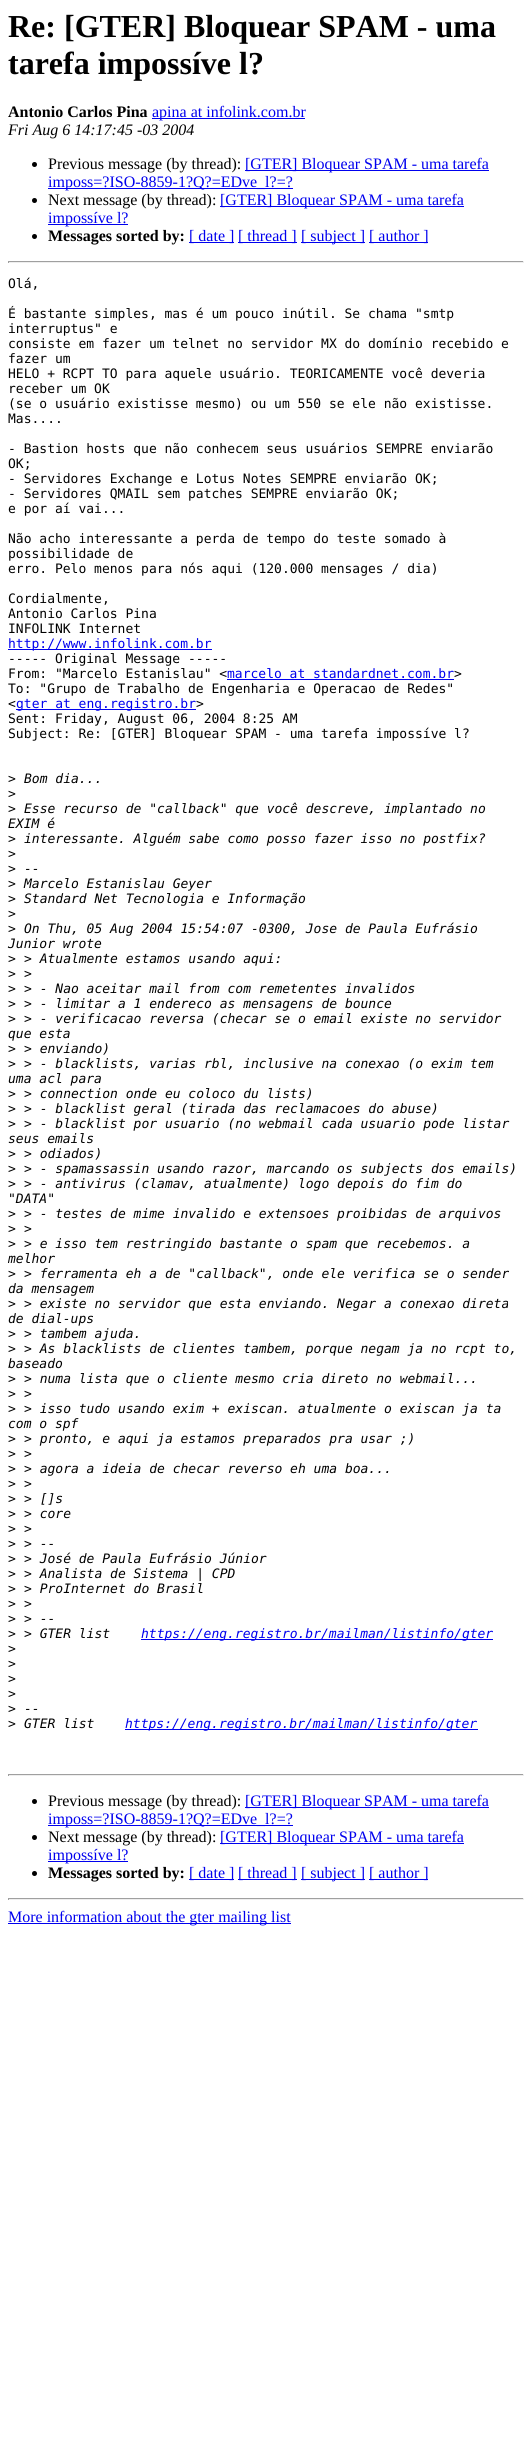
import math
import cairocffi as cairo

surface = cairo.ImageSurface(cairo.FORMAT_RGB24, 532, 2442)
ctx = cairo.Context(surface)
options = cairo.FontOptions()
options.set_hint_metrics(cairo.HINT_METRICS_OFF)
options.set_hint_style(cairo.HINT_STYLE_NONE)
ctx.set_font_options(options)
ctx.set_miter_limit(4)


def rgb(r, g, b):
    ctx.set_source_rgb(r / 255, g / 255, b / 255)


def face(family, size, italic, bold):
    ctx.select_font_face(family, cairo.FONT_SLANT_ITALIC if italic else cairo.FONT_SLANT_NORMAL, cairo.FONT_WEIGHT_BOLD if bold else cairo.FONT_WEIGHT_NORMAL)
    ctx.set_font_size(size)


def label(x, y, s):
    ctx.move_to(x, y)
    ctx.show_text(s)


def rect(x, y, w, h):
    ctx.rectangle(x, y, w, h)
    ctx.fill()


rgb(255, 255, 255)
ctx.paint()
face('Liberation Serif', 32, 0, 1)
rgb(0, 0, 0)
label(8, 37, 'Re: [GTER] Bloquear SPAM - uma')
label(8, 74, 'tarefa impossíve l?')
face('Liberation Serif', 16, 0, 1)
label(8, 117, 'Antonio Carlos Pina')
rgb(0, 0, 238)
rect(152, 118, 153, 1)
face('Liberation Serif', 16, 0, 0)
label(152, 117, 'apina at infolink.com.br')
face('Liberation Serif', 16, 1, 0)
rgb(0, 0, 0)
label(8, 135, 'Fri Aug 6 14:17:45 -03 2004')
ctx.new_path()
ctx.arc(34.5, 164.5, 2.5, 0, 2 * math.pi)
ctx.fill()
face('Liberation Serif', 16, 0, 0)
label(48, 169, 'Previous message (by thread):')
rgb(0, 0, 238)
rect(245, 170, 244, 1)
label(245, 169, '[GTER] Bloquear SPAM - uma tarefa')
rect(48, 188, 245, 1)
label(48, 187, 'imposs=?ISO-8859-1?Q?=EDve_l?=?')
rgb(0, 0, 0)
ctx.new_path()
ctx.arc(34.5, 200.5, 2.5, 0, 2 * math.pi)
ctx.fill()
label(48, 205, 'Next message (by thread):')
rgb(0, 0, 238)
rect(220, 206, 244, 1)
label(220, 205, '[GTER] Bloquear SPAM - uma tarefa')
rect(48, 224, 80, 1)
label(48, 223, 'impossíve l?')
rgb(0, 0, 0)
ctx.new_path()
ctx.arc(34.5, 236.5, 2.5, 0, 2 * math.pi)
ctx.fill()
face('Liberation Serif', 16, 0, 1)
label(48, 241, 'Messages sorted by:')
rgb(0, 0, 238)
rect(189, 242, 45, 1)
face('Liberation Serif', 16, 0, 0)
label(189, 241, '[ date ]')
rect(238, 242, 59, 1)
label(238, 241, '[ thread ]')
rect(301, 242, 64, 1)
label(301, 241, '[ subject ]')
rect(369, 242, 59, 1)
label(369, 241, '[ author ]')
rgb(159, 159, 159)
rect(8, 261, 516, 1)
rgb(238, 238, 238)
rect(523, 261, 1, 2)
rect(8, 262, 516, 1)
rgb(159, 159, 159)
rect(8, 261, 1, 2)
face('DejaVu Sans Mono', 13, 0, 0)
rgb(0, 0, 0)
label(8, 288, 'Olá,')
label(8, 318, 'É bastante simples, mas é um pouco inútil. Se chama "smtp')
label(8, 333, 'interruptus" e')
label(8, 348, 'consiste em fazer um telnet no servidor MX do domínio recebido e')
label(8, 363, 'fazer um')
label(8, 378, 'HELO + RCPT TO para aquele usuário. TEORICAMENTE você deveria')
label(8, 393, 'receber um OK')
label(8, 408, '(se o usuário existisse mesmo) ou um 550 se ele não existisse.')
label(8, 423, 'Mas....')
label(8, 453, '- Bastion hosts que não conhecem seus usuários SEMPRE enviarão')
label(8, 468, 'OK;')
label(8, 483, '- Servidores Exchange e Lotus Notes SEMPRE enviarão OK;')
label(8, 498, '- Servidores QMAIL sem patches SEMPRE enviarão OK;')
label(8, 513, 'e por aí vai...')
label(8, 543, 'Não acho interessante a perda de tempo do teste somado à')
label(8, 558, 'possibilidade de')
label(8, 573, 'erro. Pelo menos para nós aqui (120.000 mensages / dia)')
label(8, 603, 'Cordialmente,')
label(8, 618, 'Antonio Carlos Pina')
label(8, 633, 'INFOLINK Internet')
rgb(0, 0, 238)
rect(8, 649, 204, 1)
label(8, 648, 'http://www.infolink.com.br')
rgb(0, 0, 0)
label(8, 663, '----- Original Message -----')
label(8, 678, 'From: "Marcelo Estanislau" <')
rgb(0, 0, 238)
label(227, 678, 'marcelo at standardnet.com.br')
rect(227, 679, 227, 1)
rgb(0, 0, 0)
label(454, 678, '>')
label(8, 693, 'To: "Grupo de Trabalho de Engenharia e Operacao de Redes"')
label(8, 708, '<')
rgb(0, 0, 238)
rect(16, 709, 180, 1)
label(16, 708, 'gter at eng.registro.br')
rgb(0, 0, 0)
label(196, 708, '>')
label(8, 723, 'Sent: Friday, August 06, 2004 8:25 AM')
label(8, 738, 'Subject: Re: [GTER] Bloquear SPAM - uma tarefa impossíve l?')
label(8, 783, '>')
face('DejaVu Sans Mono', 13, 1, 0)
label(24, 783, 'Bom dia...')
face('DejaVu Sans Mono', 13, 0, 0)
label(8, 798, '>')
label(8, 813, '>')
face('DejaVu Sans Mono', 13, 1, 0)
label(24, 813, 'Esse recurso de "callback" que você descreve, implantado no')
label(8, 828, 'EXIM é')
face('DejaVu Sans Mono', 13, 0, 0)
label(8, 843, '>')
face('DejaVu Sans Mono', 13, 1, 0)
label(24, 843, 'interessante. Alguém sabe como posso fazer isso no postfix?')
face('DejaVu Sans Mono', 13, 0, 0)
label(8, 858, '>')
label(8, 873, '>')
face('DejaVu Sans Mono', 13, 1, 0)
label(24, 873, '--')
face('DejaVu Sans Mono', 13, 0, 0)
label(8, 888, '>')
face('DejaVu Sans Mono', 13, 1, 0)
label(24, 888, 'Marcelo Estanislau Geyer')
face('DejaVu Sans Mono', 13, 0, 0)
label(8, 903, '>')
face('DejaVu Sans Mono', 13, 1, 0)
label(24, 903, 'Standard Net Tecnologia e Informação')
face('DejaVu Sans Mono', 13, 0, 0)
label(8, 918, '>')
label(8, 933, '>')
face('DejaVu Sans Mono', 13, 1, 0)
label(24, 933, 'On Thu, 05 Aug 2004 15:54:07 -0300, Jose de Paula Eufrásio')
label(8, 948, 'Junior wrote')
face('DejaVu Sans Mono', 13, 0, 0)
label(8, 963, '>')
face('DejaVu Sans Mono', 13, 1, 0)
label(24, 963, '> Atualmente estamos usando aqui:')
face('DejaVu Sans Mono', 13, 0, 0)
label(8, 978, '>')
face('DejaVu Sans Mono', 13, 1, 0)
label(24, 978, '>')
face('DejaVu Sans Mono', 13, 0, 0)
label(8, 993, '>')
face('DejaVu Sans Mono', 13, 1, 0)
label(24, 993, '> - Nao aceitar mail from com remetentes invalidos')
face('DejaVu Sans Mono', 13, 0, 0)
label(8, 1008, '>')
face('DejaVu Sans Mono', 13, 1, 0)
label(24, 1008, '> - limitar a 1 endereco as mensagens de bounce')
face('DejaVu Sans Mono', 13, 0, 0)
label(8, 1023, '>')
face('DejaVu Sans Mono', 13, 1, 0)
label(24, 1023, '> - verificacao reversa (checar se o email existe no servidor')
label(8, 1038, 'que esta')
face('DejaVu Sans Mono', 13, 0, 0)
label(8, 1053, '>')
face('DejaVu Sans Mono', 13, 1, 0)
label(24, 1053, '> enviando)')
face('DejaVu Sans Mono', 13, 0, 0)
label(8, 1068, '>')
face('DejaVu Sans Mono', 13, 1, 0)
label(24, 1068, '> - blacklists, varias rbl, inclusive na conexao (o exim tem')
label(8, 1083, 'uma acl para')
face('DejaVu Sans Mono', 13, 0, 0)
label(8, 1098, '>')
face('DejaVu Sans Mono', 13, 1, 0)
label(24, 1098, '> connection onde eu coloco du lists)')
face('DejaVu Sans Mono', 13, 0, 0)
label(8, 1113, '>')
face('DejaVu Sans Mono', 13, 1, 0)
label(24, 1113, '> - blacklist geral (tirada das reclamacoes do abuse)')
face('DejaVu Sans Mono', 13, 0, 0)
label(8, 1128, '>')
face('DejaVu Sans Mono', 13, 1, 0)
label(24, 1128, '> - blacklist por usuario (no webmail cada usuario pode listar')
label(8, 1143, 'seus emails')
face('DejaVu Sans Mono', 13, 0, 0)
label(8, 1158, '>')
face('DejaVu Sans Mono', 13, 1, 0)
label(24, 1158, '> odiados)')
face('DejaVu Sans Mono', 13, 0, 0)
label(8, 1173, '>')
face('DejaVu Sans Mono', 13, 1, 0)
label(24, 1173, '> - spamassassin usando razor, marcando os subjects dos emails)')
face('DejaVu Sans Mono', 13, 0, 0)
label(8, 1188, '>')
face('DejaVu Sans Mono', 13, 1, 0)
label(24, 1188, '> - antivirus (clamav, atualmente) logo depois do fim do')
label(8, 1203, '"DATA"')
face('DejaVu Sans Mono', 13, 0, 0)
label(8, 1218, '>')
face('DejaVu Sans Mono', 13, 1, 0)
label(24, 1218, '> - testes de mime invalido e extensoes proibidas de arquivos')
face('DejaVu Sans Mono', 13, 0, 0)
label(8, 1233, '>')
face('DejaVu Sans Mono', 13, 1, 0)
label(24, 1233, '>')
face('DejaVu Sans Mono', 13, 0, 0)
label(8, 1248, '>')
face('DejaVu Sans Mono', 13, 1, 0)
label(24, 1248, '> e isso tem restringido bastante o spam que recebemos. a')
label(8, 1263, 'melhor')
face('DejaVu Sans Mono', 13, 0, 0)
label(8, 1278, '>')
face('DejaVu Sans Mono', 13, 1, 0)
label(24, 1278, '> ferramenta eh a de "callback", onde ele verifica se o sender')
label(8, 1293, 'da mensagem')
face('DejaVu Sans Mono', 13, 0, 0)
label(8, 1308, '>')
face('DejaVu Sans Mono', 13, 1, 0)
label(24, 1308, '> existe no servidor que esta enviando. Negar a conexao direta')
label(8, 1323, 'de dial-ups')
face('DejaVu Sans Mono', 13, 0, 0)
label(8, 1338, '>')
face('DejaVu Sans Mono', 13, 1, 0)
label(24, 1338, '> tambem ajuda.')
face('DejaVu Sans Mono', 13, 0, 0)
label(8, 1353, '>')
face('DejaVu Sans Mono', 13, 1, 0)
label(24, 1353, '> As blacklists de clientes tambem, porque negam ja no rcpt to,')
label(8, 1368, 'baseado')
face('DejaVu Sans Mono', 13, 0, 0)
label(8, 1383, '>')
face('DejaVu Sans Mono', 13, 1, 0)
label(24, 1383, '> numa lista que o cliente mesmo cria direto no webmail...')
face('DejaVu Sans Mono', 13, 0, 0)
label(8, 1398, '>')
face('DejaVu Sans Mono', 13, 1, 0)
label(24, 1398, '>')
face('DejaVu Sans Mono', 13, 0, 0)
label(8, 1413, '>')
face('DejaVu Sans Mono', 13, 1, 0)
label(24, 1413, '> isso tudo usando exim + exiscan. atualmente o exiscan ja ta')
label(8, 1428, 'com o spf')
face('DejaVu Sans Mono', 13, 0, 0)
label(8, 1443, '>')
face('DejaVu Sans Mono', 13, 1, 0)
label(24, 1443, '> pronto, e aqui ja estamos preparados pra usar ;)')
face('DejaVu Sans Mono', 13, 0, 0)
label(8, 1458, '>')
face('DejaVu Sans Mono', 13, 1, 0)
label(24, 1458, '>')
face('DejaVu Sans Mono', 13, 0, 0)
label(8, 1473, '>')
face('DejaVu Sans Mono', 13, 1, 0)
label(24, 1473, '> agora a ideia de checar reverso eh uma boa...')
face('DejaVu Sans Mono', 13, 0, 0)
label(8, 1488, '>')
face('DejaVu Sans Mono', 13, 1, 0)
label(24, 1488, '>')
face('DejaVu Sans Mono', 13, 0, 0)
label(8, 1503, '>')
face('DejaVu Sans Mono', 13, 1, 0)
label(24, 1503, '> []s')
face('DejaVu Sans Mono', 13, 0, 0)
label(8, 1518, '>')
face('DejaVu Sans Mono', 13, 1, 0)
label(24, 1518, '> core')
face('DejaVu Sans Mono', 13, 0, 0)
label(8, 1533, '>')
face('DejaVu Sans Mono', 13, 1, 0)
label(24, 1533, '>')
face('DejaVu Sans Mono', 13, 0, 0)
label(8, 1548, '>')
face('DejaVu Sans Mono', 13, 1, 0)
label(24, 1548, '> --')
face('DejaVu Sans Mono', 13, 0, 0)
label(8, 1563, '>')
face('DejaVu Sans Mono', 13, 1, 0)
label(24, 1563, '> José de Paula Eufrásio Júnior')
face('DejaVu Sans Mono', 13, 0, 0)
label(8, 1578, '>')
face('DejaVu Sans Mono', 13, 1, 0)
label(24, 1578, '> Analista de Sistema | CPD')
face('DejaVu Sans Mono', 13, 0, 0)
label(8, 1593, '>')
face('DejaVu Sans Mono', 13, 1, 0)
label(24, 1593, '> ProInternet do Brasil')
face('DejaVu Sans Mono', 13, 0, 0)
label(8, 1608, '>')
face('DejaVu Sans Mono', 13, 1, 0)
label(24, 1608, '>')
face('DejaVu Sans Mono', 13, 0, 0)
label(8, 1623, '>')
face('DejaVu Sans Mono', 13, 1, 0)
label(24, 1623, '> --')
face('DejaVu Sans Mono', 13, 0, 0)
label(8, 1638, '>')
face('DejaVu Sans Mono', 13, 1, 0)
label(24, 1638, '> GTER list')
rgb(0, 0, 238)
rect(141, 1639, 352, 1)
label(141, 1638, 'https://eng.registro.br/mailman/listinfo/gter')
face('DejaVu Sans Mono', 13, 0, 0)
rgb(0, 0, 0)
label(8, 1653, '>')
label(8, 1668, '>')
label(8, 1683, '>')
label(8, 1698, '>')
label(8, 1713, '>')
face('DejaVu Sans Mono', 13, 1, 0)
label(24, 1713, '--')
face('DejaVu Sans Mono', 13, 0, 0)
label(8, 1728, '>')
face('DejaVu Sans Mono', 13, 1, 0)
label(24, 1728, 'GTER list')
rgb(0, 0, 238)
rect(125, 1729, 353, 1)
label(125, 1728, 'https://eng.registro.br/mailman/listinfo/gter')
rgb(159, 159, 159)
rect(8, 1774, 516, 1)
rgb(238, 238, 238)
rect(523, 1774, 1, 2)
rect(8, 1775, 516, 1)
rgb(159, 159, 159)
rect(8, 1774, 1, 2)
rgb(0, 0, 0)
ctx.new_path()
ctx.arc(34.5, 1801.5, 2.5, 0, 2 * math.pi)
ctx.fill()
face('Liberation Serif', 16, 0, 0)
label(48, 1806, 'Previous message (by thread):')
rgb(0, 0, 238)
rect(245, 1807, 244, 1)
label(245, 1806, '[GTER] Bloquear SPAM - uma tarefa')
rect(48, 1825, 245, 1)
label(48, 1824, 'imposs=?ISO-8859-1?Q?=EDve_l?=?')
rgb(0, 0, 0)
ctx.new_path()
ctx.arc(34.5, 1837.5, 2.5, 0, 2 * math.pi)
ctx.fill()
label(48, 1842, 'Next message (by thread):')
rgb(0, 0, 238)
rect(220, 1843, 244, 1)
label(220, 1842, '[GTER] Bloquear SPAM - uma tarefa')
rect(48, 1861, 80, 1)
label(48, 1860, 'impossíve l?')
rgb(0, 0, 0)
ctx.new_path()
ctx.arc(34.5, 1873.5, 2.5, 0, 2 * math.pi)
ctx.fill()
face('Liberation Serif', 16, 0, 1)
label(48, 1878, 'Messages sorted by:')
rgb(0, 0, 238)
rect(189, 1879, 45, 1)
face('Liberation Serif', 16, 0, 0)
label(189, 1878, '[ date ]')
rect(238, 1879, 59, 1)
label(238, 1878, '[ thread ]')
rect(301, 1879, 64, 1)
label(301, 1878, '[ subject ]')
rect(369, 1879, 59, 1)
label(369, 1878, '[ author ]')
rgb(159, 159, 159)
rect(8, 1898, 516, 1)
rgb(238, 238, 238)
rect(523, 1898, 1, 2)
rect(8, 1899, 516, 1)
rgb(159, 159, 159)
rect(8, 1898, 1, 2)
rgb(0, 0, 238)
rect(8, 1923, 283, 1)
label(8, 1922, 'More information about the gter mailing list')
surface.write_to_png('render.png')
